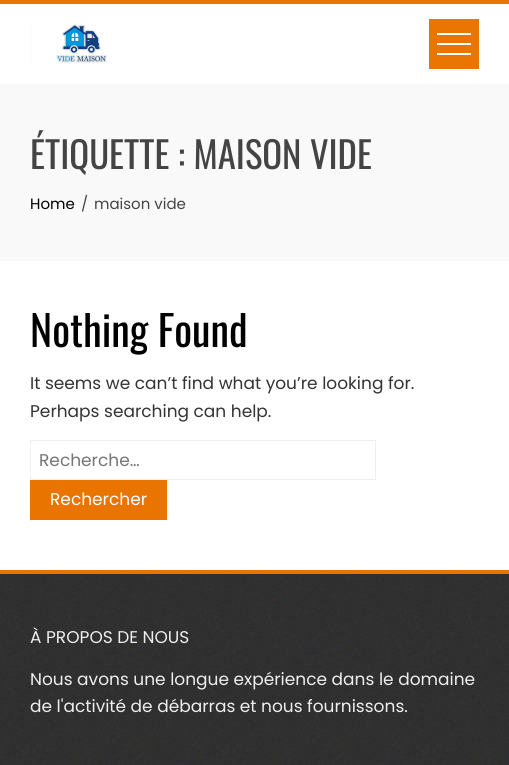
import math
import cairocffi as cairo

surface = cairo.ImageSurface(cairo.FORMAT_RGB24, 509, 765)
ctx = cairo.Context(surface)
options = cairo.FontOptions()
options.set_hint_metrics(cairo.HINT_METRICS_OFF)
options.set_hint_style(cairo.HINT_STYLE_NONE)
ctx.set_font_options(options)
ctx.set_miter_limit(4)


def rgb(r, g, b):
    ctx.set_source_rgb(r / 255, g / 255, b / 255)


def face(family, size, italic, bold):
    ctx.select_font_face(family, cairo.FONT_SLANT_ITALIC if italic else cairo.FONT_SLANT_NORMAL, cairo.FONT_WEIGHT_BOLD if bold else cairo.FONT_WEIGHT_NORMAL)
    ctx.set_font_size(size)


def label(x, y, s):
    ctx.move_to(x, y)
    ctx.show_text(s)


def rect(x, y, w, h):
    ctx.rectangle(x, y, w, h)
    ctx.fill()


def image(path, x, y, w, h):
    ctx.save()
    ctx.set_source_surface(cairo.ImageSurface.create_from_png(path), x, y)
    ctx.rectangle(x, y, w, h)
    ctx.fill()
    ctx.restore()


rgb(255, 255, 255)
ctx.paint()
rgb(234, 116, 0)
rect(0, 0, 509, 4)
image('image0.png', 30, 24, 77, 40)
rect(429, 19, 50, 50)
rgb(255, 255, 255)
rect(437, 33, 34, 2)
rect(437, 53, 34, 2)
rect(437, 43, 34, 2)
rgb(249, 249, 249)
rect(0, 84, 509, 177)
face('Oswald', 36.75, 0, 0)
rgb(68, 68, 68)
label(30, 169, 'ÉTIQUETTE : MAISON VIDE')
face('Poppins', 15, 0, 0)
rgb(0, 0, 0)
label(30, 209, 'Home')
rgb(68, 68, 68)
label(81, 209, '/')
label(94, 209, 'maison vide')
face('Oswald', 42, 0, 0)
rgb(0, 0, 0)
label(30, 347, 'Nothing Found')
face('Poppins', 17, 0, 0)
rgb(51, 51, 51)
label(30, 389, 'It seems we can’t find what you’re looking for.')
label(30, 417, 'Perhaps searching can help.')
ctx.rectangle(30.5, 440.5, 345, 39)
rgb(238, 238, 238)
ctx.set_line_width(1)
ctx.stroke()
rgb(117, 117, 117)
label(39, 466, 'Recherche…')
rgb(234, 116, 0)
rect(30, 480, 137, 40)
rgb(255, 255, 255)
label(50, 505, 'Rechercher')
image('image1.png', 0, 574, 509, 191)
rgb(234, 116, 0)
rect(0, 570, 509, 4)
rgb(238, 238, 238)
label(30, 643, 'À PROPOS DE NOUS')
label(30, 685, 'Nous avons une longue expérience dans le domaine')
label(30, 712, 'de l\'activité de débarras et nous fournissons.')
surface.write_to_png('render.png')
